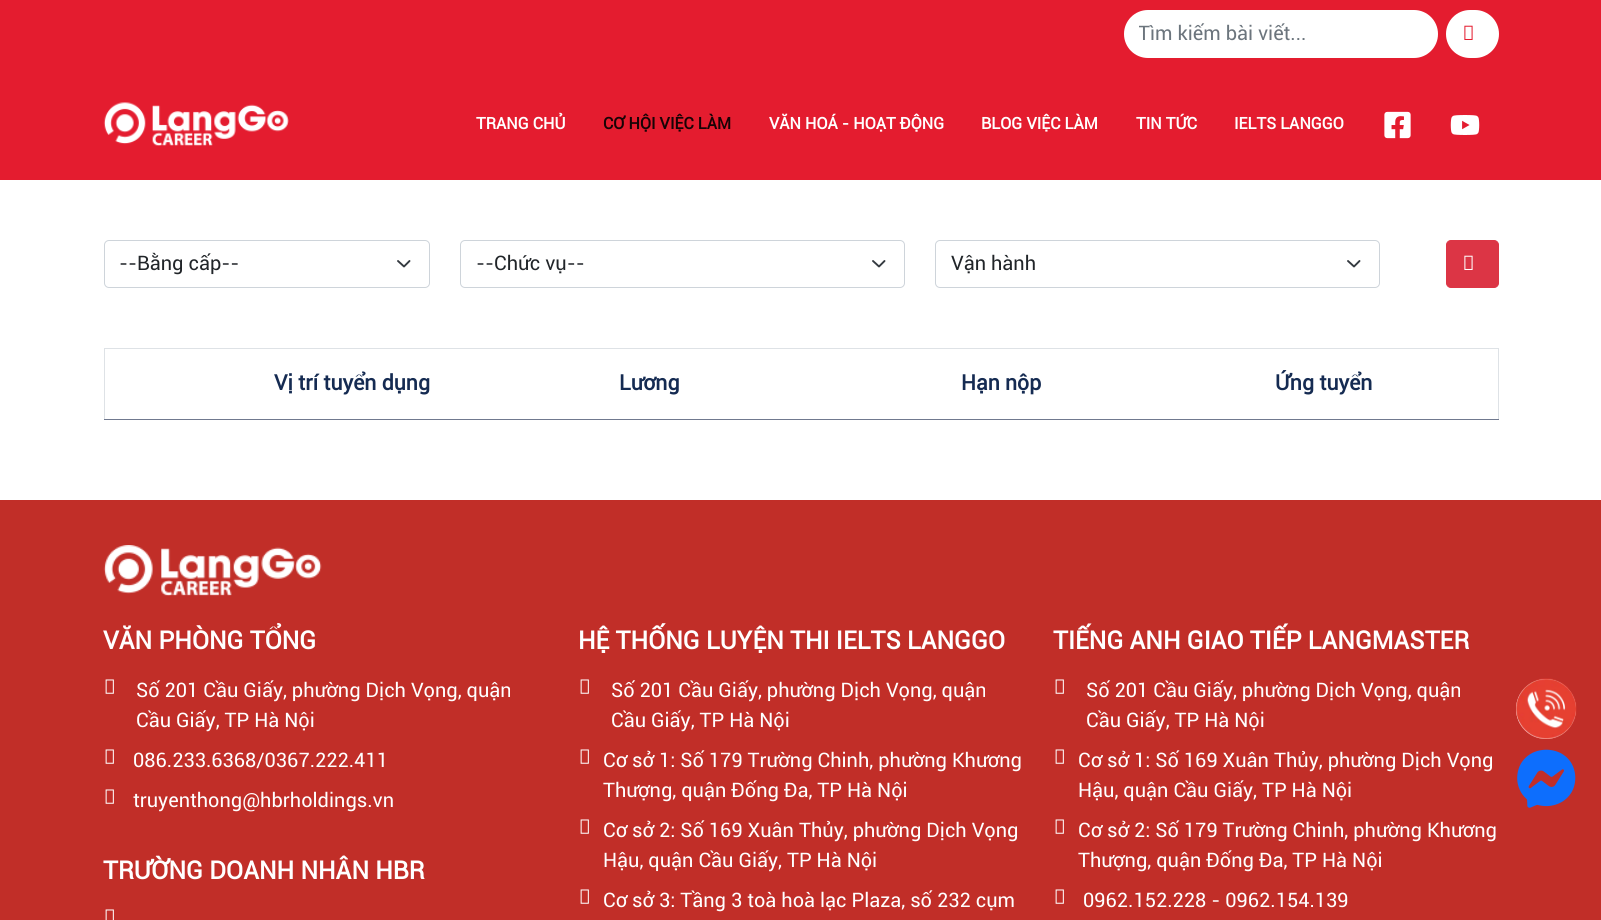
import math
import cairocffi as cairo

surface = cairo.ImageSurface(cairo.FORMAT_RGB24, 1601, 920)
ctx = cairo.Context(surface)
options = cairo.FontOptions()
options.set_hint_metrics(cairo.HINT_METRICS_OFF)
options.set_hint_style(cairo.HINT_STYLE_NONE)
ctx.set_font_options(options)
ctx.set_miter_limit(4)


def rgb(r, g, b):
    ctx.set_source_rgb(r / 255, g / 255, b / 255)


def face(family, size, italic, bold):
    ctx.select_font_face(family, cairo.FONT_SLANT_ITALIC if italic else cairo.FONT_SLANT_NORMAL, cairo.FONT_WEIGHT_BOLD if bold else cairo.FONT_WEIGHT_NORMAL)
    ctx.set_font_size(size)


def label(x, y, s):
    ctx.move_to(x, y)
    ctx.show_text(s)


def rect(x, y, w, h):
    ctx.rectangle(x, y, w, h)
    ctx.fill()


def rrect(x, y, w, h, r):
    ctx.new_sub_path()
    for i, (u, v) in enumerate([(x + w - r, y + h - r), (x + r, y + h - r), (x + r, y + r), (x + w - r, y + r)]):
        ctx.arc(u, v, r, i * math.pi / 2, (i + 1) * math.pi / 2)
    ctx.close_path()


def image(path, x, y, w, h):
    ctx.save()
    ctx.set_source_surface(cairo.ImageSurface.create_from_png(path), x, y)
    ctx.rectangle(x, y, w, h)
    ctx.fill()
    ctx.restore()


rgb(255, 255, 255)
ctx.paint()
rgb(228, 28, 47)
rect(0, 0, 1601, 180)
rgb(255, 255, 255)
rrect(1124, 10, 314, 48, 24)
ctx.fill()
ctx.save()
ctx.rectangle(1139, 21, 284, 24)
ctx.clip()
face('Roboto', 20, 0, 0)
rgb(108, 117, 125)
label(1138, 40, 'Tìm kiếm bài viết...')
ctx.restore()
rrect(1446, 10, 53, 48, 24)
ctx.fill()
image('image0.png', 1464, 25, 9, 15)
image('image1.png', 103, 102, 186, 44)
face('Roboto', 16.25, 0, 1)
label(476, 129, 'TRANG CHỦ')
rgb(23, 3, 5)
label(603, 129, 'CƠ HỘI VIỆC LÀM')
rgb(255, 255, 255)
label(769, 129, 'VĂN HOÁ - HOẠT ĐỘNG')
label(981, 129, 'BLOG VIỆC LÀM')
label(1136, 129, 'TIN TỨC')
label(1234, 129, 'IELTS LANGGO')
image('image2.png', 1384, 111, 27, 28)
image('image3.png', 1450, 115, 30, 20)
ctx.new_path()
ctx.move_to(398, 261)
ctx.line_to(404, 266.5)
ctx.line_to(409.5, 261)
rgb(52, 58, 64)
ctx.set_line_width(1.9)
ctx.set_line_cap(cairo.LINE_CAP_ROUND)
ctx.set_line_join(cairo.LINE_JOIN_ROUND)
ctx.stroke()
rrect(104.5, 240.5, 325, 47, 4.5)
rgb(206, 212, 218)
ctx.set_line_width(1)
ctx.set_line_cap(cairo.LINE_CAP_BUTT)
ctx.set_line_join(cairo.LINE_JOIN_MITER)
ctx.stroke()
face('Roboto', 20, 0, 0)
rgb(33, 37, 41)
label(119, 270, '--Bằng cấp--')
ctx.new_path()
ctx.move_to(873, 261)
ctx.line_to(879, 266.5)
ctx.line_to(884.5, 261)
rgb(52, 58, 64)
ctx.set_line_width(1.9)
ctx.set_line_cap(cairo.LINE_CAP_ROUND)
ctx.set_line_join(cairo.LINE_JOIN_ROUND)
ctx.stroke()
rrect(460.5, 240.5, 444, 47, 4.5)
rgb(206, 212, 218)
ctx.set_line_width(1)
ctx.set_line_cap(cairo.LINE_CAP_BUTT)
ctx.set_line_join(cairo.LINE_JOIN_MITER)
ctx.stroke()
rgb(33, 37, 41)
label(476, 270, '--Chức vụ--')
ctx.new_path()
ctx.move_to(1348, 261)
ctx.line_to(1354, 266.5)
ctx.line_to(1359.5, 261)
rgb(52, 58, 64)
ctx.set_line_width(1.9)
ctx.set_line_cap(cairo.LINE_CAP_ROUND)
ctx.set_line_join(cairo.LINE_JOIN_ROUND)
ctx.stroke()
rrect(935.5, 240.5, 444, 47, 4.5)
rgb(206, 212, 218)
ctx.set_line_width(1)
ctx.set_line_cap(cairo.LINE_CAP_BUTT)
ctx.set_line_join(cairo.LINE_JOIN_MITER)
ctx.stroke()
rgb(33, 37, 41)
label(951, 270, 'Vận hành')
rgb(220, 53, 69)
rrect(1446.5, 240.5, 52, 47, 4.5)
ctx.fill_preserve()
ctx.stroke()
image('image4.png', 1464, 255, 9, 15)
rgb(222, 226, 230)
rect(104, 348, 1395, 1)
rect(1498, 348, 1, 72)
rect(104, 348, 1, 72)
face('Roboto', 21.25, 0, 1)
rgb(21, 43, 82)
label(274, 390, 'Vị trí tuyển dụng')
label(619, 390, 'Lương')
label(961, 390, 'Hạn nộp')
rgb(112, 121, 143)
rect(104, 419, 1395, 1)
rgb(21, 43, 82)
label(1275, 390, 'Ứng tuyển')
rgb(193, 46, 40)
rect(0, 500, 1601, 420)
image('image5.png', 103, 545, 219, 51)
face('Roboto', 25, 0, 1)
rgb(255, 255, 255)
label(103, 649, 'VĂN PHÒNG TỔNG')
image('image6.png', 105, 679, 9, 15)
face('Roboto', 20, 0, 0)
label(136, 697, 'Số 201 Cầu Giấy, phường Dịch Vọng, quận')
label(136, 727, 'Cầu Giấy, TP Hà Nội')
image('image6.png', 105, 749, 9, 15)
label(133, 767, '086.233.6368/0367.222.411')
image('image6.png', 105, 789, 9, 15)
label(133, 807, 'truyenthong@hbrholdings.vn')
face('Roboto', 25, 0, 1)
label(103, 879, 'TRƯỜNG DOANH NHÂN HBR')
image('image7.png', 105, 909, 9, 11)
label(578, 649, 'HỆ THỐNG LUYỆN THI IELTS LANGGO')
image('image6.png', 580, 679, 9, 15)
face('Roboto', 20, 0, 0)
label(611, 697, 'Số 201 Cầu Giấy, phường Dịch Vọng, quận')
label(611, 727, 'Cầu Giấy, TP Hà Nội')
image('image6.png', 580, 749, 9, 15)
label(603, 767, 'Cơ sở 1: Số 179 Trường Chinh, phường Khương')
label(603, 797, 'Thượng, quận Đống Đa, TP Hà Nội')
image('image6.png', 580, 819, 9, 15)
label(603, 837, 'Cơ sở 2: Số 169 Xuân Thủy, phường Dịch Vọng')
label(603, 867, 'Hậu, quận Cầu Giấy, TP Hà Nội')
image('image6.png', 580, 889, 9, 15)
label(603, 907, 'Cơ sở 3: Tầng 3 toà hoà lạc Plaza, số 232 cụm')
face('Roboto', 25, 0, 1)
label(1053, 649, 'TIẾNG ANH GIAO TIẾP LANGMASTER')
image('image6.png', 1055, 679, 9, 15)
face('Roboto', 20, 0, 0)
label(1086, 697, 'Số 201 Cầu Giấy, phường Dịch Vọng, quận')
label(1086, 727, 'Cầu Giấy, TP Hà Nội')
image('image6.png', 1055, 749, 9, 15)
label(1078, 767, 'Cơ sở 1: Số 169 Xuân Thủy, phường Dịch Vọng')
label(1078, 797, 'Hậu, quận Cầu Giấy, TP Hà Nội')
image('image6.png', 1055, 819, 9, 15)
label(1078, 837, 'Cơ sở 2: Số 179 Trường Chinh, phường Khương')
label(1078, 867, 'Thượng, quận Đống Đa, TP Hà Nội')
image('image6.png', 1055, 889, 9, 15)
label(1083, 907, '0962.152.228 - 0962.154.139')
ctx.new_path()
ctx.arc(1546, 709, 30, 0, 2 * math.pi)
ctx.fill()
image('image8.png', 1516, 678, 61, 61)
image('image9.png', 1517, 749, 59, 59)
surface.write_to_png('render.png')
